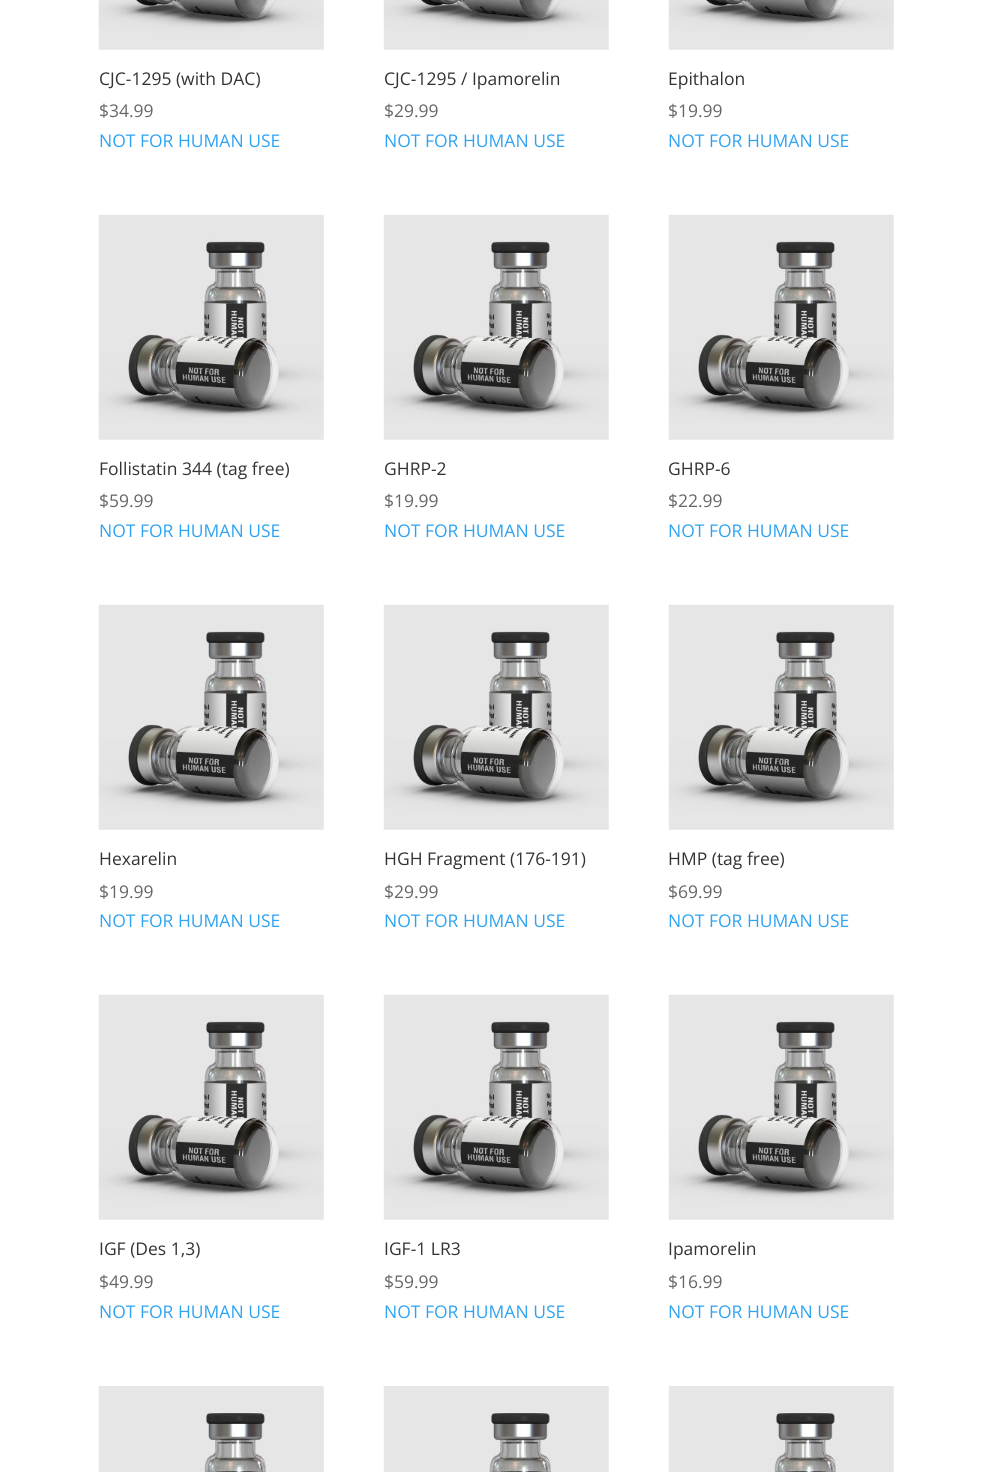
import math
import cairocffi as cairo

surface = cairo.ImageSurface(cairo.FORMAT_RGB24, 992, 1472)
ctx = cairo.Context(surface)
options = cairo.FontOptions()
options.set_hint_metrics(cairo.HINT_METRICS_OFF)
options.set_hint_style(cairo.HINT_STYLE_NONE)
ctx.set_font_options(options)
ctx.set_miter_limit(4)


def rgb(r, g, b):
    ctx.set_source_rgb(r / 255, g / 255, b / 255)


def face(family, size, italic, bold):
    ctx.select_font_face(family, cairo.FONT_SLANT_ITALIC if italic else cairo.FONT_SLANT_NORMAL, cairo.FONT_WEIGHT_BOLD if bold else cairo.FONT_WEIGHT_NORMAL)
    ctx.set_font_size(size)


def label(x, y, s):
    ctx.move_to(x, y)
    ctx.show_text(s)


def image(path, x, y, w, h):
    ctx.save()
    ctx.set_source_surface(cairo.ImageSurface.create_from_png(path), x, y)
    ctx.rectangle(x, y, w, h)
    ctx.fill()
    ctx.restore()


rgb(255, 255, 255)
ctx.paint()
image('image0.png', 98, 0, 226, 50)
face('Open Sans', 17.5, 0, 0)
rgb(51, 51, 51)
label(99, 85, 'CJC-1295 (with DAC)')
rgb(102, 102, 102)
label(99, 117, '$34.99')
rgb(46, 163, 242)
label(99, 147, 'NOT FOR HUMAN USE')
image('image1.png', 383, 0, 226, 50)
rgb(51, 51, 51)
label(384, 85, 'CJC-1295 / Ipamorelin')
rgb(102, 102, 102)
label(384, 117, '$29.99')
rgb(46, 163, 242)
label(384, 147, 'NOT FOR HUMAN USE')
image('image1.png', 668, 0, 226, 50)
rgb(51, 51, 51)
label(668, 85, 'Epithalon')
rgb(102, 102, 102)
label(668, 117, '$19.99')
rgb(46, 163, 242)
label(668, 147, 'NOT FOR HUMAN USE')
image('image2.png', 98, 214, 226, 226)
rgb(51, 51, 51)
label(99, 475, 'Follistatin 344 (tag free)')
rgb(102, 102, 102)
label(99, 507, '$59.99')
rgb(46, 163, 242)
label(99, 537, 'NOT FOR HUMAN USE')
image('image3.png', 383, 214, 226, 226)
rgb(51, 51, 51)
label(384, 475, 'GHRP-2')
rgb(102, 102, 102)
label(384, 507, '$19.99')
rgb(46, 163, 242)
label(384, 537, 'NOT FOR HUMAN USE')
image('image3.png', 668, 214, 226, 226)
rgb(51, 51, 51)
label(668, 475, 'GHRP-6')
rgb(102, 102, 102)
label(668, 507, '$22.99')
rgb(46, 163, 242)
label(668, 537, 'NOT FOR HUMAN USE')
image('image2.png', 98, 604, 226, 226)
rgb(51, 51, 51)
label(99, 865, 'Hexarelin')
rgb(102, 102, 102)
label(99, 898, '$19.99')
rgb(46, 163, 242)
label(99, 927, 'NOT FOR HUMAN USE')
image('image3.png', 383, 604, 226, 226)
rgb(51, 51, 51)
label(384, 865, 'HGH Fragment (176-191)')
rgb(102, 102, 102)
label(384, 898, '$29.99')
rgb(46, 163, 242)
label(384, 927, 'NOT FOR HUMAN USE')
image('image3.png', 668, 604, 226, 226)
rgb(51, 51, 51)
label(668, 865, 'HMP (tag free)')
rgb(102, 102, 102)
label(668, 898, '$69.99')
rgb(46, 163, 242)
label(668, 927, 'NOT FOR HUMAN USE')
image('image2.png', 98, 994, 226, 226)
rgb(51, 51, 51)
label(99, 1255, 'IGF (Des 1,3)')
rgb(102, 102, 102)
label(99, 1288, '$49.99')
rgb(46, 163, 242)
label(99, 1318, 'NOT FOR HUMAN USE')
image('image3.png', 383, 994, 226, 226)
rgb(51, 51, 51)
label(384, 1255, 'IGF-1 LR3')
rgb(102, 102, 102)
label(384, 1288, '$59.99')
rgb(46, 163, 242)
label(384, 1318, 'NOT FOR HUMAN USE')
image('image3.png', 668, 994, 226, 226)
rgb(51, 51, 51)
label(668, 1255, 'Ipamorelin')
rgb(102, 102, 102)
label(668, 1288, '$16.99')
rgb(46, 163, 242)
label(668, 1318, 'NOT FOR HUMAN USE')
image('image4.png', 98, 1386, 226, 86)
image('image5.png', 383, 1386, 226, 86)
image('image5.png', 668, 1386, 226, 86)
surface.write_to_png('render.png')
